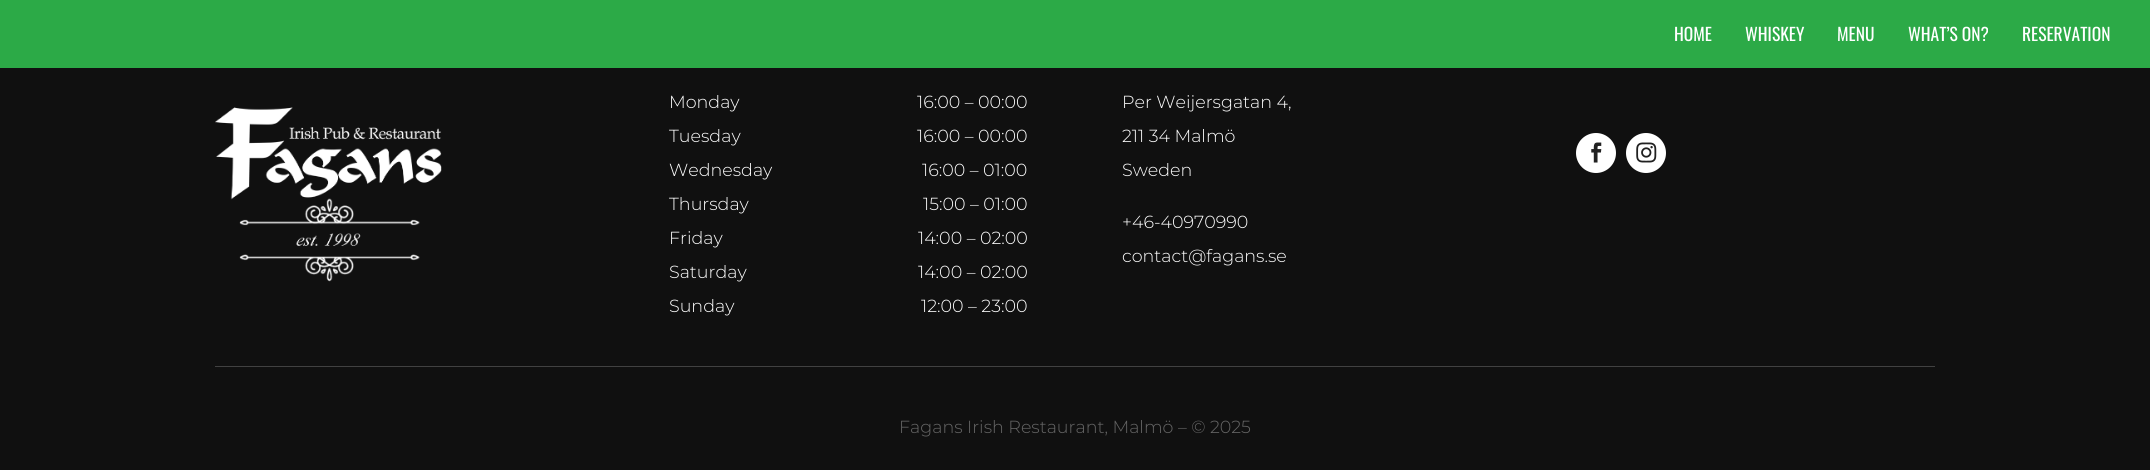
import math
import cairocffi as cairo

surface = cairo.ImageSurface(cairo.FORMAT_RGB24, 2150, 470)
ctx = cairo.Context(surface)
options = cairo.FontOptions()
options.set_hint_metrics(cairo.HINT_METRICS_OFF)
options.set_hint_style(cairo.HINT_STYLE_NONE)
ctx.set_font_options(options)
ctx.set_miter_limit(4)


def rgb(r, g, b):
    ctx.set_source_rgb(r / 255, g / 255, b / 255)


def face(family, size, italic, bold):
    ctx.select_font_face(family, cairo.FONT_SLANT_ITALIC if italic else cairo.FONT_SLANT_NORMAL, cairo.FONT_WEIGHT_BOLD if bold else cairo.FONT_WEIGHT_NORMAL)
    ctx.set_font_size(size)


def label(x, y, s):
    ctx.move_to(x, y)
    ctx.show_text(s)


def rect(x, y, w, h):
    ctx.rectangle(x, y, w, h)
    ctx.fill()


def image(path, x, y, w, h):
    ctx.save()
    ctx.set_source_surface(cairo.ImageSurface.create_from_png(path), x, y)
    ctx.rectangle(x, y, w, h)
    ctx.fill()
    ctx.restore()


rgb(16, 16, 16)
ctx.paint()
rgb(44, 170, 71)
rect(0, 0, 2150, 68)
face('Oswald', 17.5, 0, 0)
rgb(255, 255, 255)
label(1674, 41, 'HOME')
label(1745, 41, 'WHISKEY')
label(1837, 41, 'MENU')
label(1908, 41, 'WHAT’S ON?')
label(2022, 41, 'RESERVATION')
image('image0.png', 215, 107, 227, 175)
face('Montserrat Light', 17.5, 0, 0)
label(669, 108, 'Monday')
label(917, 108, '16:00 – 00:00')
label(669, 142, 'Tuesday')
label(917, 142, '16:00 – 00:00')
label(669, 176, 'Wednesday')
label(922, 176, '16:00 – 01:00')
label(669, 210, 'Thursday')
label(923, 210, '15:00 – 01:00')
label(669, 244, 'Friday')
label(918, 244, '14:00 – 02:00')
label(669, 278, 'Saturday')
label(918, 278, '14:00 – 02:00')
label(669, 312, 'Sunday')
label(921, 312, '12:00 – 23:00')
label(1122, 108, 'Per Weijersgatan 4,')
label(1122, 142, '211 34 Malmö')
label(1122, 176, 'Sweden')
label(1122, 228, '+46-40970990')
label(1122, 262, 'contact@fagans.se')
ctx.new_path()
ctx.arc(1596, 153, 20, 0, 2 * math.pi)
ctx.fill()
image('image1.png', 1591, 142, 11, 21)
ctx.arc(1646, 153, 20, 0, 2 * math.pi)
ctx.fill()
image('image2.png', 1636, 142, 21, 21)
rgb(65, 65, 65)
rect(215, 366, 1720, 1)
rgb(102, 102, 102)
label(899, 433, 'Fagans Irish Restaurant, Malmö – © 2025')
surface.write_to_png('render.png')
